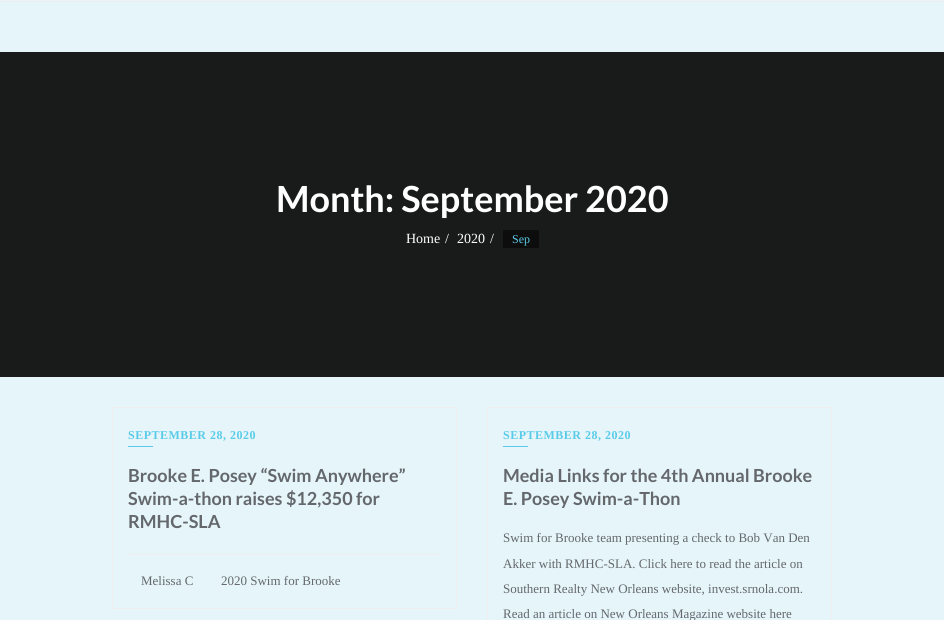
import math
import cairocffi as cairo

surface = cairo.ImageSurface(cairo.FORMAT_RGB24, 944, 620)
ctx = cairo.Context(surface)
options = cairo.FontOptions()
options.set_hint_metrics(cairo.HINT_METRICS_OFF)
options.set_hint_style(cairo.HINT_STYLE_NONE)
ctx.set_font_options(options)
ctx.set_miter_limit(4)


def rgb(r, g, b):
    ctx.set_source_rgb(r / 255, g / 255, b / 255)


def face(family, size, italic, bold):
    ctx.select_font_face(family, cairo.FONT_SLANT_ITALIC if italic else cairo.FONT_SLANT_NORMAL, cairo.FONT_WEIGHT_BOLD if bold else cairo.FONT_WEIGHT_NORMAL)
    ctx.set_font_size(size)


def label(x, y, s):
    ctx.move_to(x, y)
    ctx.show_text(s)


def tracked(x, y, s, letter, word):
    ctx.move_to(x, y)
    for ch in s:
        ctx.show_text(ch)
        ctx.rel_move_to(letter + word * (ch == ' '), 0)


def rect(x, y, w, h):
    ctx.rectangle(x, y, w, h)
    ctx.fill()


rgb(229, 245, 249)
ctx.paint()
rgb(238, 238, 238)
rect(0, 1, 944, 1)
rgb(25, 26, 26)
rect(0, 52, 944, 325)
face('Lato', 36, 0, 1)
rgb(255, 255, 255)
label(276, 212, 'Month: September 2020')
face('Liberation Serif', 14, 0, 0)
label(406, 243, 'Home')
label(445, 243, '/')
label(457, 243, '2020')
label(490, 243, '/')
rgb(13, 13, 13)
rect(503, 230, 36, 18)
face('Liberation Serif', 12, 0, 0)
rgb(89, 203, 232)
label(512, 243, 'Sep')
ctx.rectangle(112.5, 407.5, 344, 201)
rgb(238, 238, 238)
ctx.set_line_width(1)
ctx.stroke()
face('Liberation Serif', 12, 0, 1)
rgb(89, 203, 232)
tracked(128, 439, 'SEPTEMBER 28, 2020', 0.5, 0)
rect(128, 446, 25, 1)
face('Lato', 18, 0, 1)
rgb(100, 104, 109)
label(128, 482, 'Brooke E. Posey “Swim Anywhere”')
label(128, 505, 'Swim-a-thon raises $12,350 for')
label(128, 528, 'RMHC-SLA')
rgb(238, 238, 238)
rect(128, 554, 313, 1)
face('Liberation Serif', 13, 0, 0)
rgb(100, 104, 109)
label(141, 585, 'Melissa C')
label(221, 585, '2020 Swim for Brooke')
ctx.rectangle(487.5, 407.5, 344, 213)
rgb(238, 238, 238)
ctx.stroke()
face('Liberation Serif', 12, 0, 1)
rgb(89, 203, 232)
tracked(503, 439, 'SEPTEMBER 28, 2020', 0.5, 0)
rect(503, 446, 25, 1)
face('Lato', 18, 0, 1)
rgb(100, 104, 109)
label(503, 482, 'Media Links for the 4th Annual Brooke')
label(503, 505, 'E. Posey Swim-a-Thon')
face('Liberation Serif', 13, 0, 0)
label(503, 542, 'Swim for Brooke team presenting a check to Bob Van Den')
label(503, 568, 'Akker with RMHC-SLA. Click here to read the article on')
label(503, 593, 'Southern Realty New Orleans website, invest.srnola.com.')
label(503, 618, 'Read an article on New Orleans Magazine website here')
surface.write_to_png('render.png')
